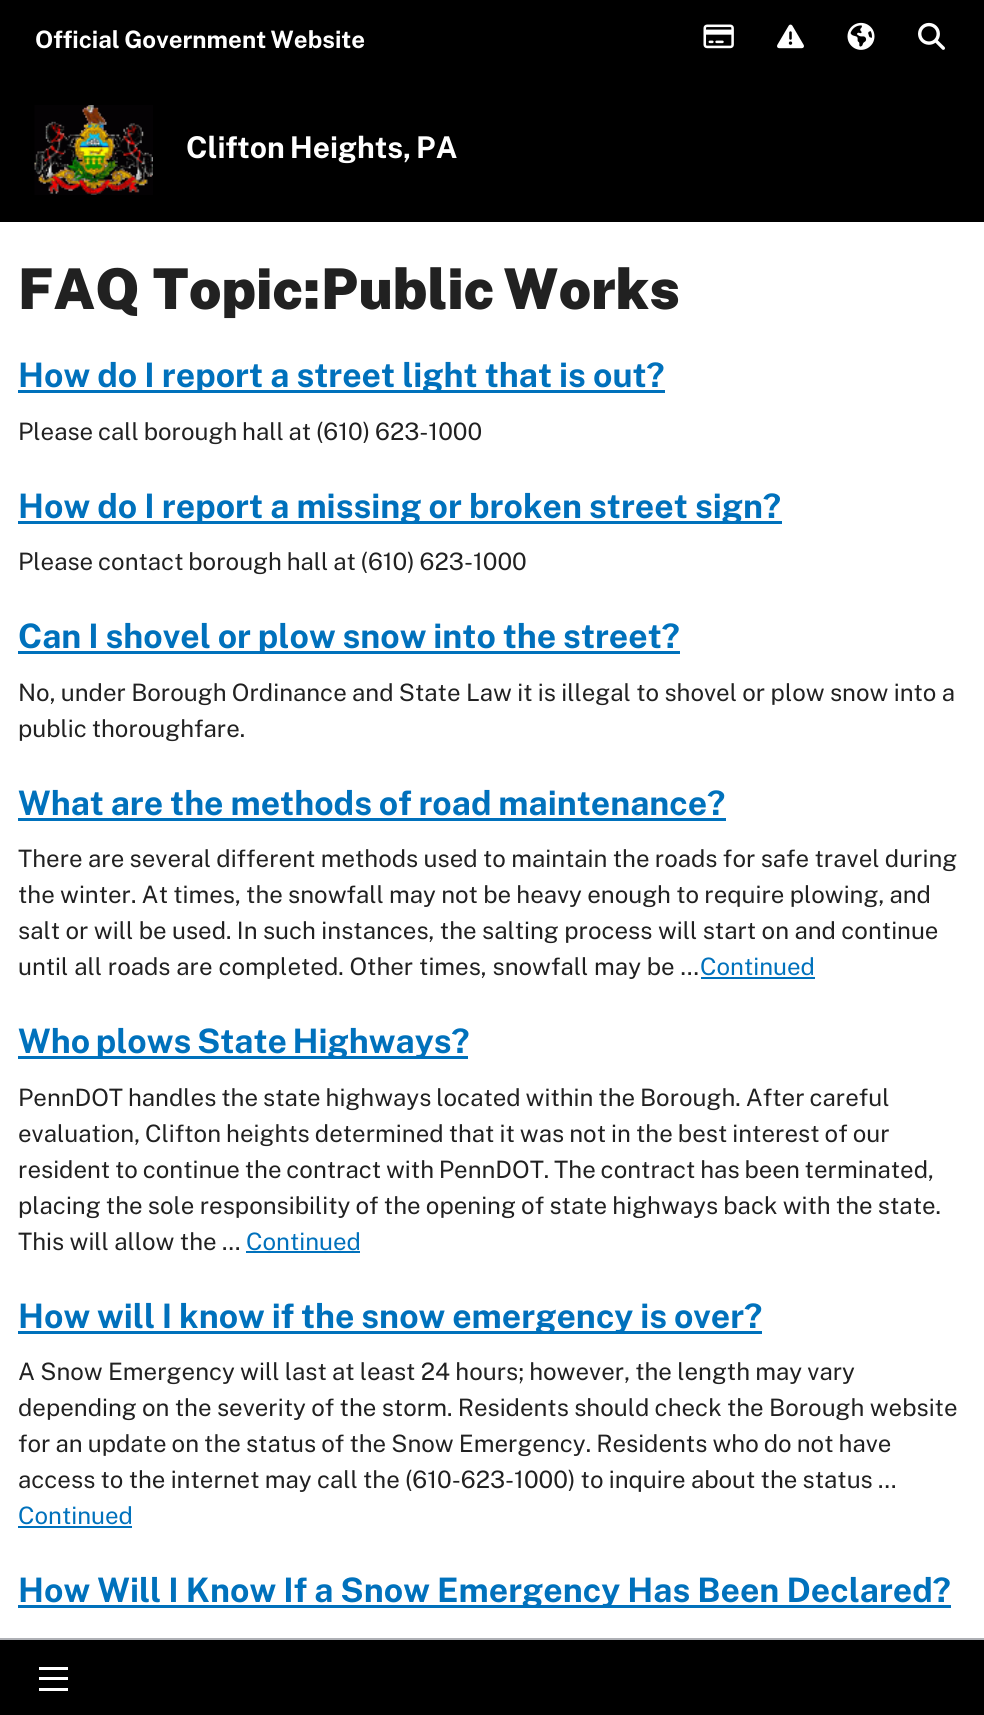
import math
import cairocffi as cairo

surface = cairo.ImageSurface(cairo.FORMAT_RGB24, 984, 1715)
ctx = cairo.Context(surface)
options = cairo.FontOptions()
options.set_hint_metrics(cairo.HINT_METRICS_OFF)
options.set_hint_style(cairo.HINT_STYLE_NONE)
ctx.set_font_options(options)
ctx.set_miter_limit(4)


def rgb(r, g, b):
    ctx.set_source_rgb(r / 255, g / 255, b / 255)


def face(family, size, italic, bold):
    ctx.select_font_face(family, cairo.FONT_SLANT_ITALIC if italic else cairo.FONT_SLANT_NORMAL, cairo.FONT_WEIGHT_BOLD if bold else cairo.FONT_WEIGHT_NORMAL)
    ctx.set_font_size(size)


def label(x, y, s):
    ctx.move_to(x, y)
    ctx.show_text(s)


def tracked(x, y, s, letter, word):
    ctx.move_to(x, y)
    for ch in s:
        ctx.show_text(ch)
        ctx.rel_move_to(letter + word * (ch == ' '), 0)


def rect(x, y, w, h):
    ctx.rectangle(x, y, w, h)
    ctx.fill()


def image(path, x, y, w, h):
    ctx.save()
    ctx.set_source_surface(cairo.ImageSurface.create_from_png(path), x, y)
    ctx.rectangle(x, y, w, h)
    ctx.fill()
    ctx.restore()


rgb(255, 255, 255)
ctx.paint()
rgb(0, 0, 0)
rect(0, 0, 984, 222)
face('Public Sans', 24, 0, 1)
rgb(255, 255, 255)
tracked(35, 48, 'Official Government Website', 0, -1)
image('image0.png', 703, 24, 31, 25)
image('image1.png', 777, 24, 27, 25)
image('image2.png', 847, 22, 28, 28)
image('image3.png', 918, 22, 27, 28)
image('image4.png', 34, 105, 119, 90)
face('Public Sans', 30, 0, 1)
tracked(186, 158, 'Clifton Heights, PA', 0, -2)
rgb(0, 0, 0)
rect(0, 1640, 984, 75)
rgb(174, 176, 181)
rect(0, 1638, 984, 2)
rgb(255, 255, 255)
rect(39, 1677, 29, 3)
rect(39, 1667, 29, 3)
rect(39, 1688, 29, 3)
face('Public Sans Black', 56.25, 0, 0)
rgb(33, 33, 33)
tracked(18, 309, 'FAQ Topic:', 0, 1)
tracked(321, 309, 'Public Works', 0, -3)
rgb(0, 113, 188)
rect(18, 390, 647, 3)
face('Public Sans', 33.75, 0, 1)
tracked(18, 387, 'How do I report a street light that is out?', 0, -0.5)
face('Public Sans', 24, 0, 0)
rgb(33, 33, 33)
tracked(18, 440, 'Please call borough hall at (610) 623-1000', 0, -1)
rgb(0, 113, 188)
rect(18, 521, 764, 3)
face('Public Sans', 33.75, 0, 1)
tracked(18, 518, 'How do I report a missing or broken street sign?', 0, -0.5)
face('Public Sans', 24, 0, 0)
rgb(33, 33, 33)
tracked(18, 570, 'Please contact borough hall at (610) 623-1000', 0, -1)
rgb(0, 113, 188)
rect(18, 651, 662, 3)
face('Public Sans', 33.75, 0, 1)
tracked(18, 648, 'Can I shovel or plow snow into the street?', 0, -0.75)
face('Public Sans', 24, 0, 0)
rgb(33, 33, 33)
tracked(18, 701, 'No, under Borough Ordinance and State Law it is illegal to shovel or plow snow into a', 0, -0.5)
tracked(18, 737, 'public thoroughfare.', 0, -1)
face('Public Sans', 33.75, 0, 1)
rgb(0, 113, 188)
tracked(18, 815, 'What are the methods of road maintenance?', 0, -0.75)
rect(18, 818, 708, 3)
face('Public Sans', 24, 0, 0)
rgb(33, 33, 33)
tracked(18, 867, 'There are several different methods used to maintain the roads for safe travel during', 0, -0.5)
tracked(18, 903, 'the winter. At times, the snowfall may not be heavy enough to require plowing, and', 0, -0.6)
tracked(18, 939, 'salt or will be used. In such instances, the salting process will start on and continue', 0, -0.4)
label(18, 975, 'until all roads are completed. Other times, snowfall may be …')
rgb(0, 113, 188)
label(700, 975, 'Continued')
rect(701, 977, 114, 2)
rect(18, 1056, 450, 3)
face('Public Sans', 33.75, 0, 1)
tracked(18, 1053, 'Who plows State Highways?', 0, -2)
face('Public Sans', 24, 0, 0)
rgb(33, 33, 33)
tracked(18, 1106, 'PennDOT handles the state highways located within the Borough. After careful', 0, -0.9)
tracked(18, 1142, 'evaluation, Clifton heights determined that it was not in the best interest of our', 0, -0.75)
tracked(18, 1178, 'resident to continue the contract with PennDOT. The contract has been terminated,', 0, -1)
tracked(18, 1214, 'placing the sole responsibility of the opening of state highways back with the state.', 0, -0.6)
tracked(18, 1250, 'This will allow the …', 0, -0.5)
rgb(0, 113, 188)
label(246, 1250, 'Continued')
rect(246, 1251, 114, 2)
rect(18, 1331, 744, 3)
face('Public Sans', 33.75, 0, 1)
tracked(18, 1328, 'How will I know if the snow emergency is over?', 0, -0.75)
face('Public Sans', 24, 0, 0)
rgb(33, 33, 33)
tracked(18, 1380, 'A Snow Emergency will last at least 24 hours; however, the length may vary', 0, -0.6)
tracked(18, 1416, 'depending on the severity of the storm. Residents should check the Borough website', 0, -0.5)
tracked(18, 1452, 'for an update on the status of the Snow Emergency. Residents who do not have', 0, -0.75)
tracked(18, 1488, 'access to the internet may call the (610-623-1000) to inquire about the status …', 0, -0.6)
rgb(0, 113, 188)
label(18, 1524, 'Continued')
rect(18, 1526, 114, 2)
rect(18, 1605, 933, 3)
face('Public Sans', 33.75, 0, 1)
tracked(18, 1602, 'How Will I Know If a Snow Emergency Has Been Declared?', 0, -0.5)
surface.write_to_png('render.png')
